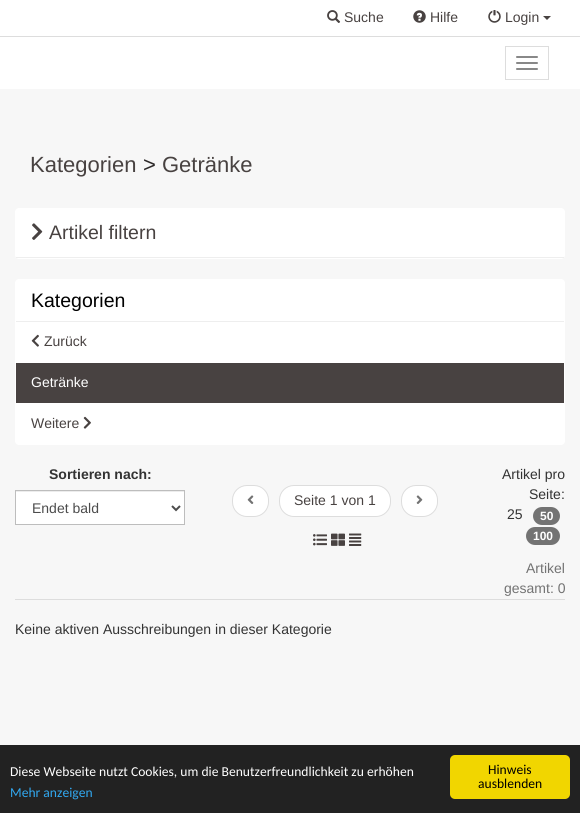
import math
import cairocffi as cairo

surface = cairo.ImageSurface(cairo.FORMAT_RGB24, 580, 813)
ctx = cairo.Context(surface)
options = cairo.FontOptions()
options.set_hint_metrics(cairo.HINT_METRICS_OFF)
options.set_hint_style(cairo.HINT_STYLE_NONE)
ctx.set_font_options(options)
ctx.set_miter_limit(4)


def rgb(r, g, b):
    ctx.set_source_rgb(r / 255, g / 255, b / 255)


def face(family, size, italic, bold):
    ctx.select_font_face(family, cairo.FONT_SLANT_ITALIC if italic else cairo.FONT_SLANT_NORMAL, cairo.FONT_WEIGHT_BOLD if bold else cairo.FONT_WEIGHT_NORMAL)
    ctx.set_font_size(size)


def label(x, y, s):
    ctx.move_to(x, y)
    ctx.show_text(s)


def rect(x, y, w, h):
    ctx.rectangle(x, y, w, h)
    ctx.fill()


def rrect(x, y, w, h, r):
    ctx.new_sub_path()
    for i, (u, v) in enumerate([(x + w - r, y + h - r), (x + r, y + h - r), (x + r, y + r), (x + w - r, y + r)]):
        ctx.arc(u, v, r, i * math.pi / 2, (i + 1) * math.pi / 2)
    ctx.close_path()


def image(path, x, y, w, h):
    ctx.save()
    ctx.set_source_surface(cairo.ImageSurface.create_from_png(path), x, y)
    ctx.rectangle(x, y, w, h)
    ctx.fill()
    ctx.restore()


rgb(247, 247, 247)
ctx.paint()
rgb(255, 255, 255)
rect(0, 0, 580, 36)
image('image0.png', 327, 10, 14, 13)
face('Liberation Sans', 14, 0, 0)
rgb(72, 66, 65)
label(344, 22, 'Suche')
image('image1.png', 413, 10, 13, 13)
label(430, 22, 'Hilfe')
image('image2.png', 488, 10, 13, 13)
label(505, 22, 'Login')
ctx.new_path()
ctx.move_to(543, 16)
ctx.line_to(551, 16)
ctx.line_to(547, 20)
ctx.close_path()
ctx.fill()
rgb(255, 255, 255)
rect(0, 37, 580, 52)
rgb(221, 221, 221)
rect(0, 36, 580, 1)
ctx.rectangle(505.5, 46.5, 43, 33)
ctx.set_line_width(1)
ctx.stroke()
rgb(136, 136, 136)
rrect(516, 56, 22, 2, 1)
ctx.fill()
rrect(516, 62, 22, 2, 1)
ctx.fill()
rrect(516, 68, 22, 2, 1)
ctx.fill()
face('Liberation Sans', 22, 0, 0)
rgb(72, 66, 65)
label(30, 172, 'Kategorien')
rgb(45, 41, 41)
label(143, 172, '>')
rgb(72, 66, 65)
label(162, 172, 'Getränke')
rgb(255, 255, 255)
rrect(15, 208, 550, 51, 4)
ctx.fill()
rgb(238, 238, 238)
rect(16, 257, 548, 1)
image('image3.png', 32, 223, 11, 17)
face('Liberation Sans', 19.5, 0, 0)
rgb(72, 66, 65)
label(49, 239, 'Artikel filtern')
rgb(255, 255, 255)
rrect(15, 279, 550, 166, 4)
ctx.fill()
rgb(238, 238, 238)
rect(16, 321, 548, 1)
rgb(0, 0, 0)
label(31, 307, 'Kategorien')
image('image4.png', 31, 334, 8, 13)
face('Liberation Sans', 14, 0, 0)
rgb(72, 66, 65)
label(44, 346, 'Zurück')
rect(16, 363, 548, 40)
rgb(255, 255, 255)
label(31, 387, 'Getränke')
rgb(72, 66, 65)
label(31, 428, 'Weitere')
image('image5.png', 83, 416, 8, 13)
rgb(221, 221, 221)
rect(15, 599, 550, 1)
face('Liberation Sans', 14, 0, 1)
rgb(51, 51, 51)
label(49, 479, 'Sortieren nach:')
rgb(255, 255, 255)
rect(16, 492, 168, 32)
rgb(236, 236, 236)
rect(16, 491, 168, 1)
ctx.rectangle(15.5, 490.5, 169, 34)
rgb(189, 189, 189)
ctx.stroke()
ctx.new_path()
ctx.move_to(172, 506)
ctx.line_to(176, 510)
ctx.line_to(180, 506)
rgb(76, 76, 76)
ctx.set_line_width(2)
ctx.stroke()
face('Liberation Sans', 14, 0, 0)
label(32, 513, 'Endet bald')
rgb(255, 255, 255)
rrect(232.5, 485.5, 36, 31, 14.5)
ctx.fill_preserve()
rgb(221, 221, 221)
ctx.set_line_width(1)
ctx.stroke()
image('image6.png', 247, 495, 7, 9)
rgb(255, 255, 255)
rrect(279.5, 485.5, 111, 31, 14.5)
ctx.fill_preserve()
rgb(221, 221, 221)
ctx.stroke()
rgb(72, 66, 65)
label(294, 505, 'Seite 1 von 1')
rgb(255, 255, 255)
rrect(401.5, 485.5, 36, 31, 14.5)
ctx.fill_preserve()
rgb(221, 221, 221)
ctx.stroke()
image('image7.png', 416, 495, 7, 9)
image('image8.png', 313, 534, 14, 12)
image('image9.png', 331, 533, 14, 13)
image('image10.png', 349, 533, 13, 13)
rgb(51, 51, 51)
label(502, 479, 'Artikel pro')
label(529, 499, 'Seite:')
label(507, 519, '25')
rgb(115, 115, 115)
rrect(533, 507, 27, 18, 9)
ctx.fill()
face('Liberation Sans', 12, 0, 1)
rgb(255, 255, 255)
label(540, 520, '50')
rgb(115, 115, 115)
rrect(526, 527, 34, 18, 9)
ctx.fill()
rgb(255, 255, 255)
label(533, 540, '100')
face('Liberation Sans', 14, 0, 0)
rgb(115, 115, 115)
label(526, 573, 'Artikel')
label(504, 593, 'gesamt: 0')
rgb(51, 51, 51)
label(15, 634, 'Keine aktiven Ausschreibungen in dieser Kategorie')
rgb(34, 34, 34)
rect(0, 745, 580, 68)
face('Carlito', 13.6, 0, 0)
rgb(255, 255, 255)
label(10, 776, 'Diese Webseite nutzt Cookies, um die Benutzerfreundlichkeit zu erhöhen')
rgb(49, 168, 240)
label(10, 797, 'Mehr anzeigen')
rgb(241, 214, 0)
rrect(450, 755, 120, 44, 5)
ctx.fill()
rgb(0, 0, 0)
label(488, 774, 'Hinweis')
label(478, 788, 'ausblenden')
surface.write_to_png('render.png')
